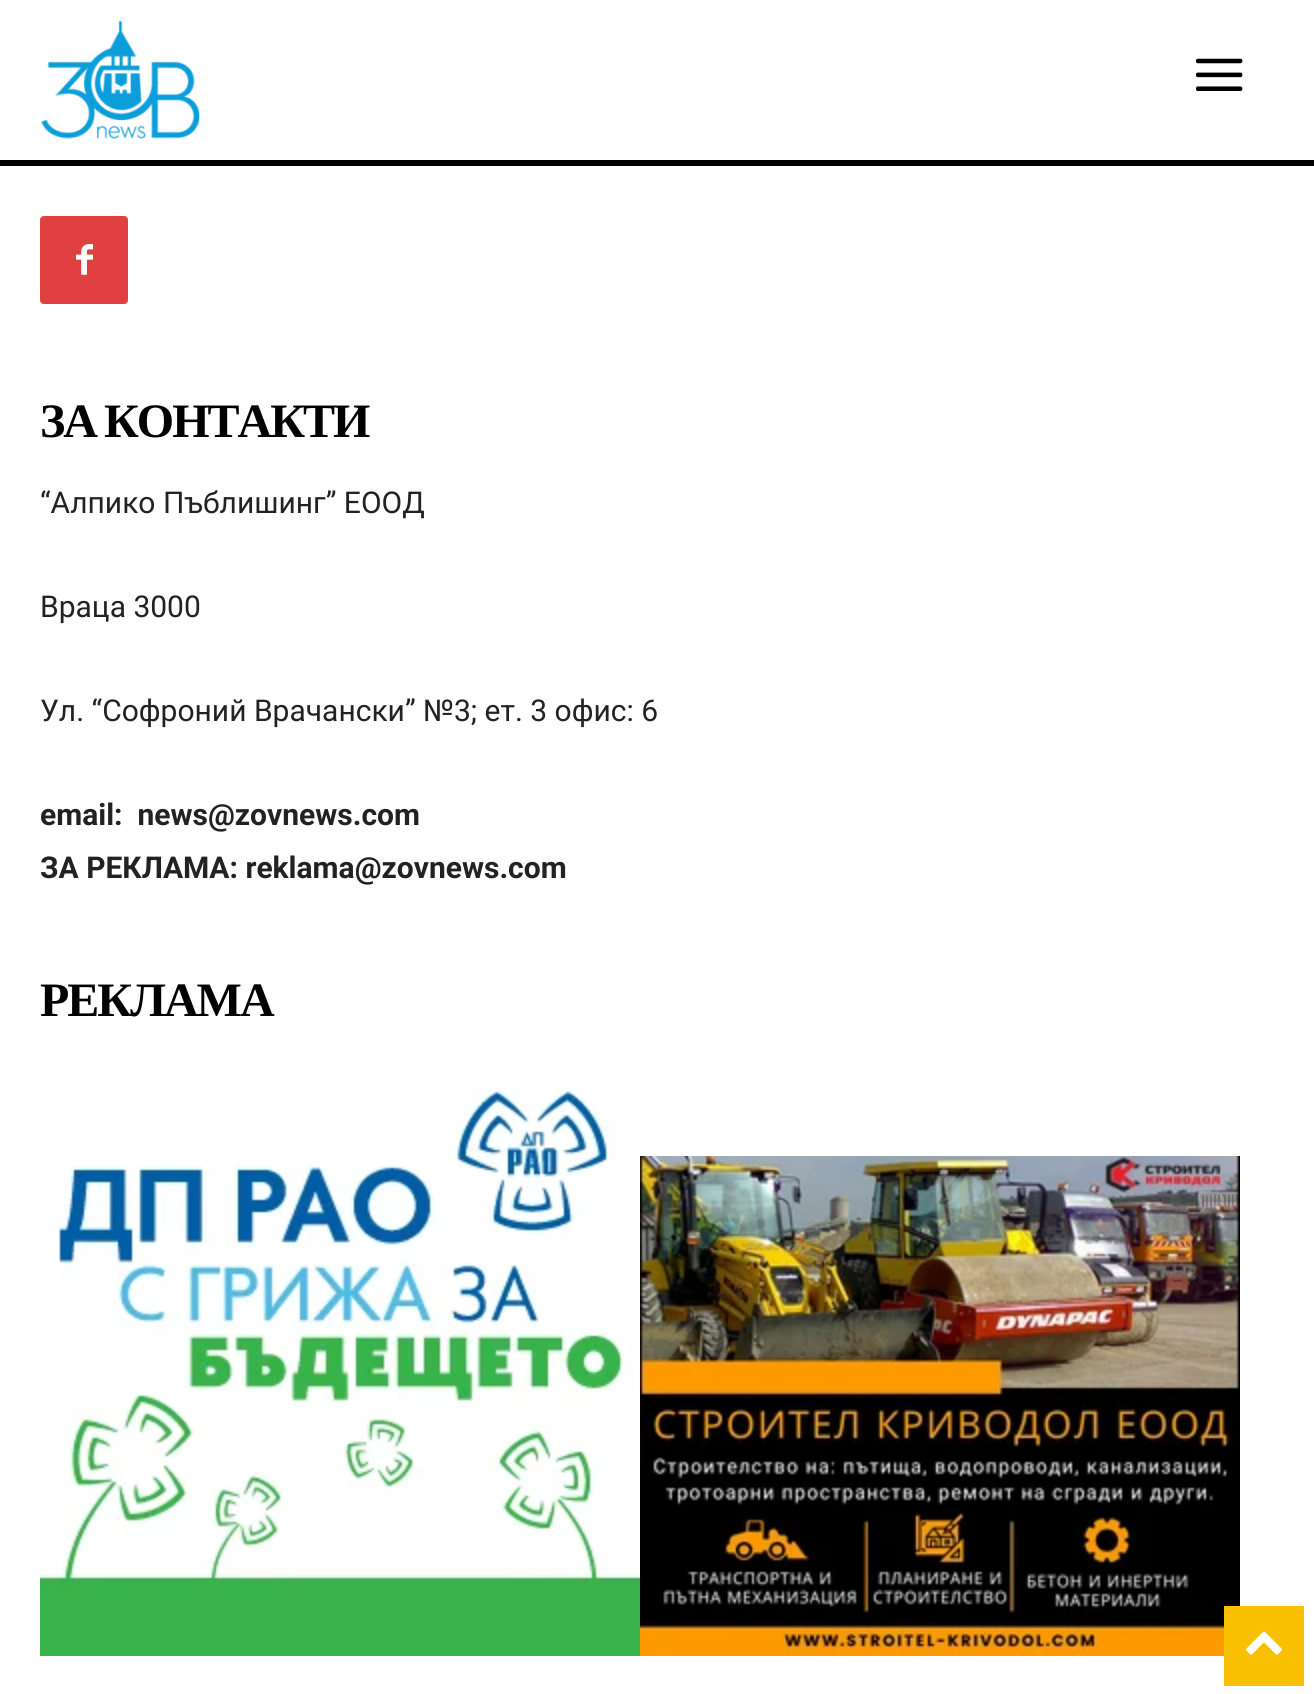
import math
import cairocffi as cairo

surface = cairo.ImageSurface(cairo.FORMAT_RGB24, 1314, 1694)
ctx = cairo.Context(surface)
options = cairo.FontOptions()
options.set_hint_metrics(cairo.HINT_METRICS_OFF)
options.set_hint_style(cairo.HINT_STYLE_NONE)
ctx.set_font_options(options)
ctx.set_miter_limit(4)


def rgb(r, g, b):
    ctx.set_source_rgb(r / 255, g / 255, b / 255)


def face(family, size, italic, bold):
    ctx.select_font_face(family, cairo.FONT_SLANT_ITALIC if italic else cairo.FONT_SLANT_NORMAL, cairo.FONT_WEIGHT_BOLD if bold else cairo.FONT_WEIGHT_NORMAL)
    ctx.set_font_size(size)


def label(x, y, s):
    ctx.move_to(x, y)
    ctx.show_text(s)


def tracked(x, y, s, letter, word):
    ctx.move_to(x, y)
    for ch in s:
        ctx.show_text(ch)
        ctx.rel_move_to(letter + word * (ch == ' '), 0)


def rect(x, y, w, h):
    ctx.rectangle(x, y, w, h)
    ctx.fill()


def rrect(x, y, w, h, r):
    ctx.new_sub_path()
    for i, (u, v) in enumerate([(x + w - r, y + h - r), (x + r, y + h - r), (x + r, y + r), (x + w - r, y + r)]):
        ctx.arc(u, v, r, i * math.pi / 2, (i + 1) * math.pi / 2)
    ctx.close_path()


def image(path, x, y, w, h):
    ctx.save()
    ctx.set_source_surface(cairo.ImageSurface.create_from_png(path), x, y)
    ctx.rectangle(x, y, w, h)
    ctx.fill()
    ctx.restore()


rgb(255, 255, 255)
ctx.paint()
rgb(0, 0, 0)
rect(0, 160, 1314, 6)
image('image0.png', 41, 20, 159, 119)
image('image1.png', 1196, 58, 47, 33)
rgb(224, 64, 64)
rrect(40, 216, 88, 88, 4)
ctx.fill()
image('image2.png', 76, 244, 17, 31)
face('Liberation Serif', 48, 0, 1)
rgb(0, 0, 0)
tracked(40, 437, 'ЗА КОНТАКТИ', -2, -2)
face('Roboto', 30, 0, 0)
rgb(34, 34, 34)
label(40, 513, '“Алпико Пъблишинг” ЕООД')
label(40, 617, 'Враца 3000')
label(40, 721, 'Ул. “Софроний Врачански” №3; ет. 3 офис: 6')
face('Roboto', 30, 0, 1)
label(40, 825, 'email:  news@zovnews.com')
label(40, 878, 'ЗА РЕКЛАМА: reklama@zovnews.com')
face('Liberation Serif', 48, 0, 1)
rgb(0, 0, 0)
tracked(40, 1016, 'РЕКЛАМА', -2, 0)
image('image3.png', 40, 1087, 600, 569)
image('image4.png', 640, 1156, 600, 500)
rgb(248, 192, 0)
rect(1224, 1606, 80, 80)
image('image5.png', 1246, 1631, 36, 24)
surface.write_to_png('render.png')
